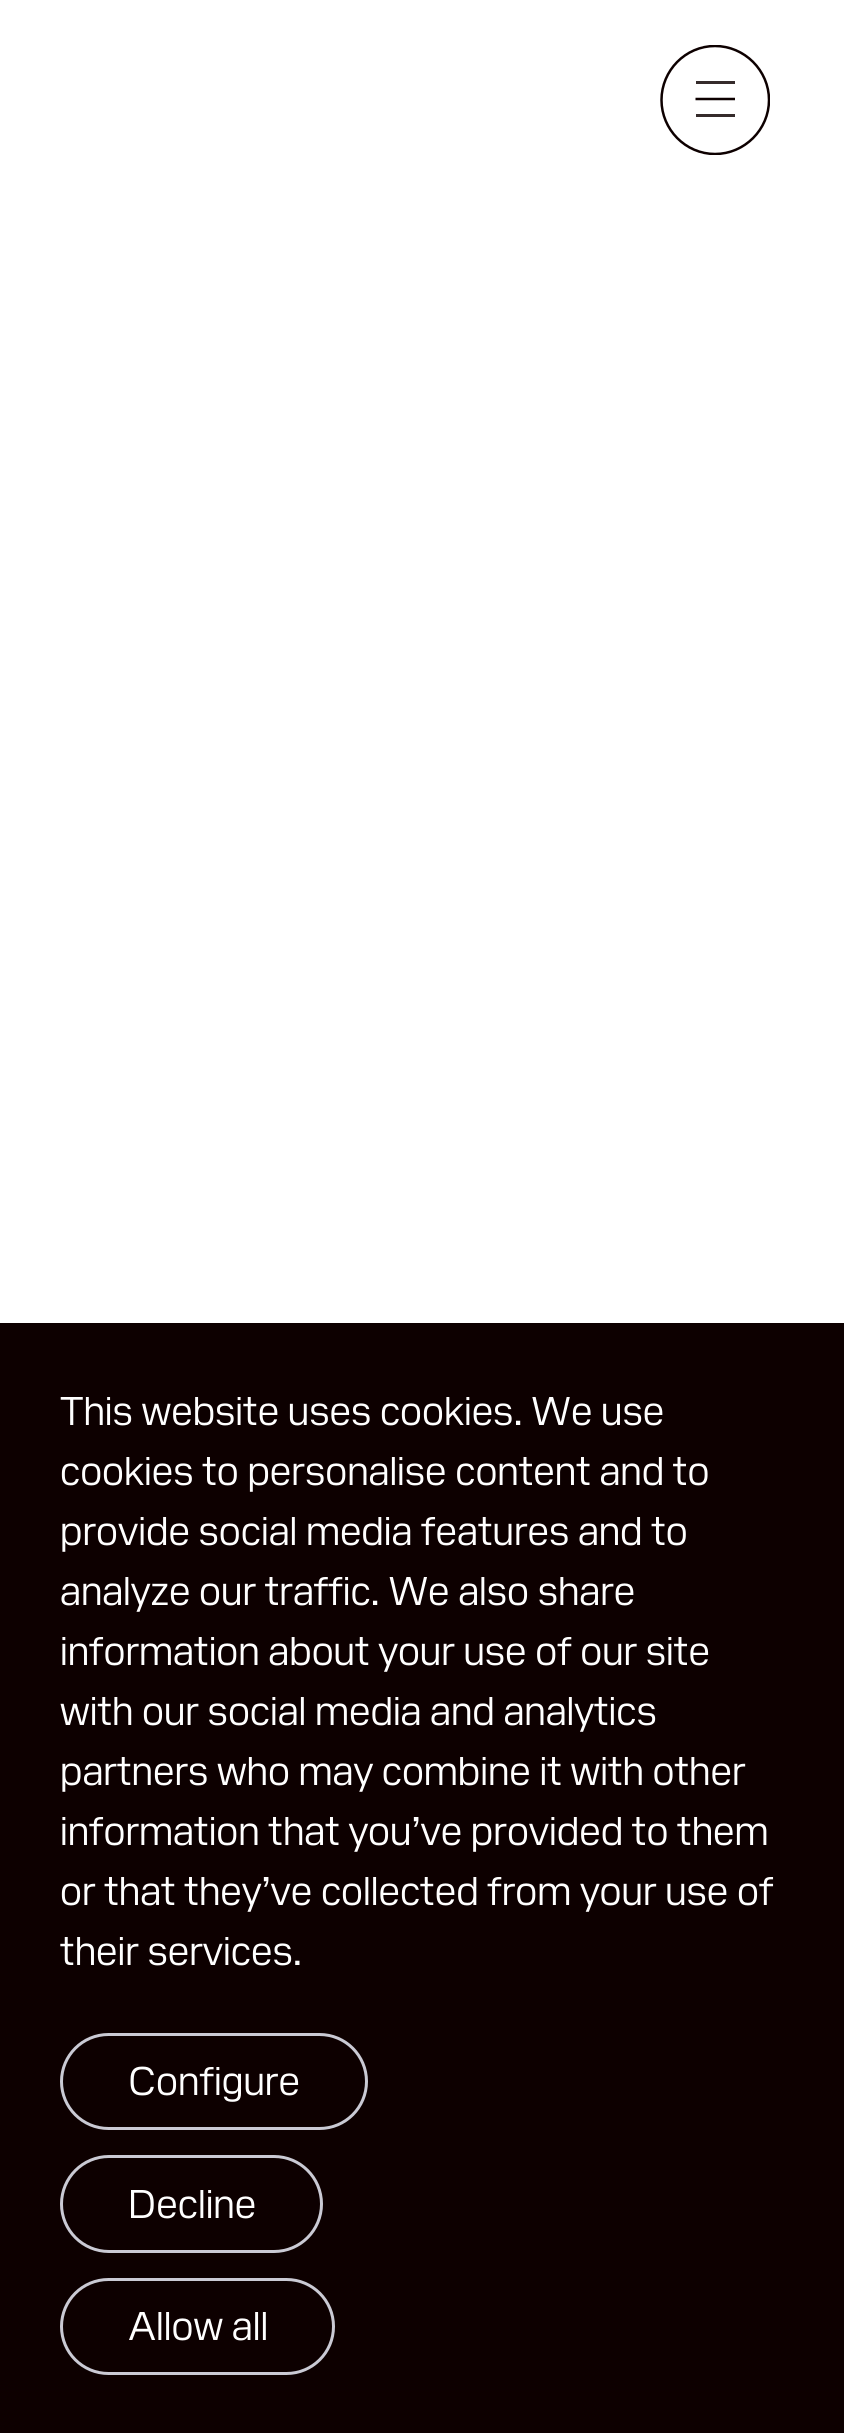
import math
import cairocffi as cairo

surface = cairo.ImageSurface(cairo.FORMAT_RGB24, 844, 2433)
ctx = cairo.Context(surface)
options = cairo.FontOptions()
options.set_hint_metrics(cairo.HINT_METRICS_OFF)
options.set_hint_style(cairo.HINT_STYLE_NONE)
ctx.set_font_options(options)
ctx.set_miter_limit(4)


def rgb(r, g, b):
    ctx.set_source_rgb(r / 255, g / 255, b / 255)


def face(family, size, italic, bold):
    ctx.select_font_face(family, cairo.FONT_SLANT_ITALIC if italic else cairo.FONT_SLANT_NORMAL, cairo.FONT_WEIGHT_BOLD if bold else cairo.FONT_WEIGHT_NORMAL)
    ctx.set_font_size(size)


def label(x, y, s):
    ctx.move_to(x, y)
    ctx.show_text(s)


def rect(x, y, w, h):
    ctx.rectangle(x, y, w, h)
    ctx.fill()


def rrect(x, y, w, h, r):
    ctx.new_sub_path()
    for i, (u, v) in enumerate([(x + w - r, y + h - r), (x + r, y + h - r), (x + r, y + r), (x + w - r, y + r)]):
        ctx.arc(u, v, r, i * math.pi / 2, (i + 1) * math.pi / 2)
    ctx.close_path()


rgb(255, 255, 255)
ctx.paint()
ctx.save()
ctx.rectangle(660, 45, 110, 110)
ctx.clip()
ctx.new_path()
ctx.move_to(769, 100)
ctx.curve_to(769, 129.5, 744.5, 154, 715, 154)
ctx.curve_to(685.5, 154, 661.5, 129.5, 661.5, 100)
ctx.curve_to(661.5, 70.5, 685.5, 46, 715, 46)
ctx.curve_to(744.5, 46, 769, 70.5, 769, 100)
ctx.close_path()
rgb(13, 0, 0)
ctx.set_line_width(2.5)
ctx.stroke()
ctx.restore()
rgb(53, 43, 43)
rect(696, 81, 39, 3)
ctx.new_path()
ctx.move_to(735, 99)
ctx.line_to(695.5, 99)
rgb(13, 0, 0)
ctx.set_line_width(2.5)
ctx.stroke()
rgb(53, 43, 43)
rect(696, 114, 39, 3)
rgb(13, 0, 0)
rect(0, 1323, 844, 1110)
face('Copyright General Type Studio', 40, 0, 0)
rgb(255, 255, 255)
label(60, 1425, 'This website uses cookies. We use')
label(60, 1485, 'cookies to personalise content and to')
label(60, 1545, 'provide social media features and to')
label(60, 1605, 'analyze our traffic. We also share')
label(60, 1665, 'information about your use of our site')
label(60, 1725, 'with our social media and analytics')
label(60, 1785, 'partners who may combine it with other')
label(60, 1845, 'information that you’ve provided to them')
label(60, 1905, 'or that they’ve collected from your use of')
label(60, 1965, 'their services.')
rrect(61.5, 2034.5, 305, 94, 47)
rgb(202, 202, 212)
ctx.set_line_width(3)
ctx.stroke()
rgb(255, 255, 255)
label(128, 2095, 'Configure')
rrect(61.5, 2156.5, 260, 95, 47.5)
rgb(202, 202, 212)
ctx.stroke()
rgb(255, 255, 255)
label(128, 2218, 'Decline')
rrect(61.5, 2279.5, 272, 94, 47)
rgb(202, 202, 212)
ctx.stroke()
rgb(255, 255, 255)
label(128, 2340, 'Allow all')
surface.write_to_png('render.png')
